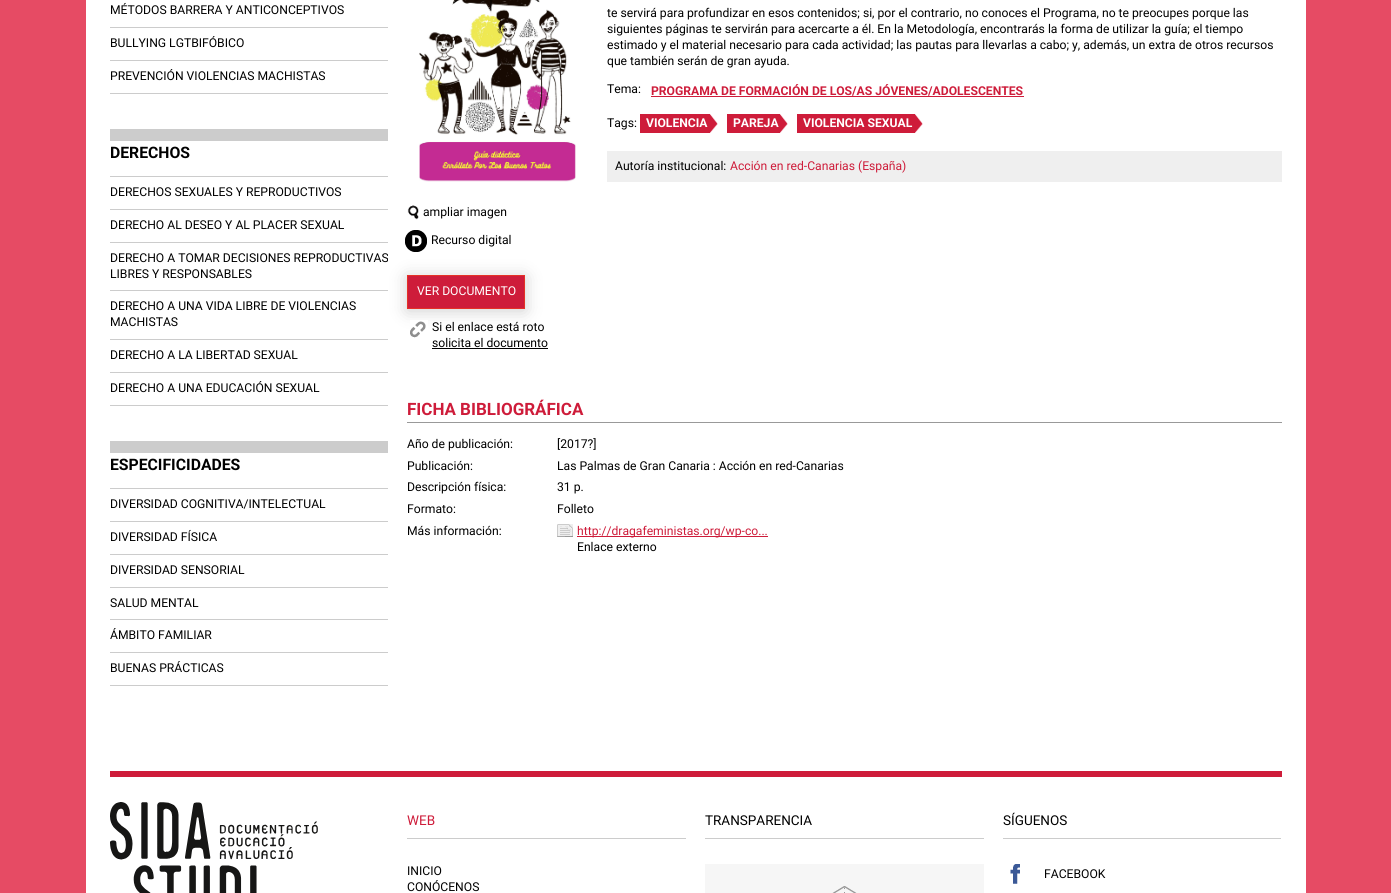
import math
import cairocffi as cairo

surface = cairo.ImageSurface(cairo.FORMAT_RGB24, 1391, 893)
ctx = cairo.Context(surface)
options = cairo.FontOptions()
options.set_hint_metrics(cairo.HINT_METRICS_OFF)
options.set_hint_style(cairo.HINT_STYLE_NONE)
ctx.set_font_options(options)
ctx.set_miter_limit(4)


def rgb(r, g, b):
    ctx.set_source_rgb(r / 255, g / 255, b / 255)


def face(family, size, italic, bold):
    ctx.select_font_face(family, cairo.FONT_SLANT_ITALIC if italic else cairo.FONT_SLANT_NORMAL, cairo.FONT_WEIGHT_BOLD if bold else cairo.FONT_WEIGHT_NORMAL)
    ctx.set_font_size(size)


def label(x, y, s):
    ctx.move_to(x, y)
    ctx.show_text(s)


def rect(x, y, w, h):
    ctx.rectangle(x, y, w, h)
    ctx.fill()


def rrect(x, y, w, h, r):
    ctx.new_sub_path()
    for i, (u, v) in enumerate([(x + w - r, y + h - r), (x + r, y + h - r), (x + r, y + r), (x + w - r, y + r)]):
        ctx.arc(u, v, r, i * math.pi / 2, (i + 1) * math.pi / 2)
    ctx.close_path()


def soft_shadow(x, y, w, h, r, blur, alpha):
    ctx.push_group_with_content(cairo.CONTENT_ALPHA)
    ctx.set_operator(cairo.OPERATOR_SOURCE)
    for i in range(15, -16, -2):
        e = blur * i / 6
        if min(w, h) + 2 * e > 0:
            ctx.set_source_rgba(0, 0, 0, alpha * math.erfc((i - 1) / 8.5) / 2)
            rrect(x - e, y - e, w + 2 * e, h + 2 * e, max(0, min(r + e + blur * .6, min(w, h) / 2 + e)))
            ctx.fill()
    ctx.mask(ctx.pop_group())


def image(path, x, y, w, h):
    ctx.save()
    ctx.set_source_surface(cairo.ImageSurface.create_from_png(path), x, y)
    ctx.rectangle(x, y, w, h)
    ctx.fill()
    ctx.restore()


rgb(230, 75, 100)
ctx.paint()
rgb(255, 255, 255)
rect(86, 0, 1220, 893)
rgb(204, 204, 204)
rect(110, 27, 278, 1)
face('Roboto', 12.15, 0, 0)
rgb(0, 0, 0)
label(110, 14, 'MÉTODOS BARRERA Y ANTICONCEPTIVOS')
rgb(204, 204, 204)
rect(110, 60, 278, 1)
rgb(0, 0, 0)
label(110, 47, 'BULLYING LGTBIFÓBICO')
rgb(204, 204, 204)
rect(110, 93, 278, 1)
rgb(0, 0, 0)
label(110, 80, 'PREVENCIÓN VIOLENCIAS MACHISTAS')
rgb(204, 204, 204)
rect(110, 129, 278, 12)
face('Roboto', 15.75, 0, 1)
rgb(0, 0, 0)
label(110, 158, 'DERECHOS')
rgb(204, 204, 204)
rect(110, 176, 278, 1)
rect(110, 209, 278, 1)
face('Roboto', 12.15, 0, 0)
rgb(0, 0, 0)
label(110, 196, 'DERECHOS SEXUALES Y REPRODUCTIVOS')
rgb(204, 204, 204)
rect(110, 242, 278, 1)
rgb(0, 0, 0)
label(110, 229, 'DERECHO AL DESEO Y AL PLACER SEXUAL')
rgb(204, 204, 204)
rect(110, 290, 278, 1)
rgb(0, 0, 0)
label(110, 262, 'DERECHO A TOMAR DECISIONES REPRODUCTIVAS')
label(110, 278, 'LIBRES Y RESPONSABLES')
rgb(204, 204, 204)
rect(110, 339, 278, 1)
rgb(0, 0, 0)
label(110, 310, 'DERECHO A UNA VIDA LIBRE DE VIOLENCIAS')
label(110, 326, 'MACHISTAS')
rgb(204, 204, 204)
rect(110, 372, 278, 1)
rgb(0, 0, 0)
label(110, 359, 'DERECHO A LA LIBERTAD SEXUAL')
rgb(204, 204, 204)
rect(110, 405, 278, 1)
rgb(0, 0, 0)
label(110, 392, 'DERECHO A UNA EDUCACIÓN SEXUAL')
rgb(204, 204, 204)
rect(110, 441, 278, 12)
face('Roboto', 15.75, 0, 1)
rgb(0, 0, 0)
label(110, 470, 'ESPECIFICIDADES')
rgb(204, 204, 204)
rect(110, 488, 278, 1)
rect(110, 521, 278, 1)
face('Roboto', 12.15, 0, 0)
rgb(0, 0, 0)
label(110, 508, 'DIVERSIDAD COGNITIVA/INTELECTUAL')
rgb(204, 204, 204)
rect(110, 554, 278, 1)
rgb(0, 0, 0)
label(110, 541, 'DIVERSIDAD FÍSICA')
rgb(204, 204, 204)
rect(110, 587, 278, 1)
rgb(0, 0, 0)
label(110, 574, 'DIVERSIDAD SENSORIAL')
rgb(204, 204, 204)
rect(110, 619, 278, 1)
rgb(0, 0, 0)
label(110, 607, 'SALUD MENTAL')
rgb(204, 204, 204)
rect(110, 652, 278, 1)
rgb(0, 0, 0)
label(110, 639, 'ÁMBITO FAMILIAR')
rgb(204, 204, 204)
rect(110, 685, 278, 1)
rgb(0, 0, 0)
label(110, 672, 'BUENAS PRÁCTICAS')
label(607, 17, 'te servirá para profundizar en esos contenidos; si, por el contrario, no conoces el Programa, no te preocupes porque las')
label(607, 33, 'siguientes páginas te servirán para acercarte a él. En la Metodología, encontrarás la forma de utilizar la guía; el tiempo')
label(607, 49, 'estimado y el material necesario para cada actividad; las pautas para llevarlas a cabo; y, además, un extra de otros recursos')
label(607, 65, 'que también serán de gran ayuda.')
label(607, 93, 'Tema:')
face('Roboto', 12.15, 0, 1)
rgb(206, 28, 58)
label(651, 95, 'PROGRAMA DE FORMACIÓN DE LOS/AS JÓVENES/ADOLESCENTES')
rect(651, 96, 373, 1)
face('Roboto', 12.15, 0, 0)
rgb(0, 0, 0)
label(607, 127, 'Tags:')
rgb(206, 28, 58)
rect(640, 114, 78, 19)
image('image0.png', 710, 114, 8, 19)
face('Roboto', 12.15, 0, 1)
rgb(255, 255, 255)
label(646, 127, 'VIOLENCIA')
rgb(206, 28, 58)
rect(727, 114, 61, 19)
image('image0.png', 780, 114, 8, 19)
rgb(255, 255, 255)
label(733, 127, 'PAREJA')
rgb(206, 28, 58)
rect(797, 114, 126, 19)
image('image0.png', 915, 114, 8, 19)
rgb(255, 255, 255)
label(803, 127, 'VIOLENCIA SEXUAL')
rgb(239, 239, 239)
rect(607, 151, 675, 31)
face('Roboto', 12.15, 0, 0)
rgb(0, 0, 0)
label(615, 170, 'Autoría institucional:')
rgb(206, 28, 58)
label(730, 170, 'Acción en red-Canarias (España)')
image('image1.png', 419, 0, 157, 182)
image('image2.png', 407, 205, 12, 15)
rgb(0, 0, 0)
label(423, 216, 'ampliar imagen')
rgb(0, 0, 0)
soft_shadow(407, 277, 118, 34, 0, 8.5, 0.19)
image('image3.png', 405, 230, 22, 22)
rgb(0, 0, 0)
label(431, 244, 'Recurso digital')
rgb(206, 28, 58)
ctx.rectangle(407.5, 275.5, 117, 33)
ctx.fill_preserve()
rgb(229, 49, 38)
ctx.set_line_width(1)
ctx.stroke()
rgb(255, 255, 255)
label(417, 295, 'VER DOCUMENTO')
image('image4.png', 410, 320, 18, 18)
rgb(0, 0, 0)
label(432, 331, 'Si el enlace está roto')
label(432, 347, 'solicita el documento')
rect(432, 348, 116, 1)
rgb(153, 153, 153)
rect(407, 422, 875, 1)
face('Roboto', 17, 0, 1)
rgb(206, 28, 58)
label(407, 415, 'FICHA BIBLIOGRÁFICA')
face('Roboto', 12.15, 0, 0)
rgb(0, 0, 0)
label(407, 448, 'Año de publicación:')
label(557, 448, '[2017?]')
label(407, 470, 'Publicación:')
label(557, 470, 'Las Palmas de Gran Canaria : Acción en red-Canarias')
label(407, 491, 'Descripción física:')
label(557, 491, '31 p.')
label(407, 513, 'Formato:')
label(557, 513, 'Folleto')
label(407, 535, 'Más información:')
image('image5.png', 557, 524, 16, 13)
rgb(206, 28, 58)
rect(577, 536, 191, 1)
label(577, 535, 'http://dragafeministas.org/wp-co...')
rgb(0, 0, 0)
label(577, 551, 'Enlace externo')
rgb(206, 28, 58)
rect(110, 771, 1172, 6)
image('image6.png', 110, 802, 208, 91)
rgb(204, 204, 204)
rect(407, 838, 279, 1)
face('Roboto', 13.5, 0, 0)
rgb(206, 28, 58)
label(407, 825, 'WEB')
face('Roboto', 12.15, 0, 0)
rgb(0, 0, 0)
label(407, 875, 'INICIO')
label(407, 891, 'CONÓCENOS')
rgb(204, 204, 204)
rect(705, 838, 279, 1)
face('Roboto', 13.5, 0, 0)
rgb(0, 0, 0)
label(705, 825, 'TRANSPARENCIA')
rgb(246, 246, 246)
rect(705, 864, 279, 29)
image('image7.png', 832, 886, 25, 7)
rgb(204, 204, 204)
rect(1003, 838, 278, 1)
rgb(0, 0, 0)
label(1003, 825, 'SÍGUENOS')
image('image8.png', 1010, 864, 10, 20)
face('Roboto', 12.15, 0, 0)
label(1044, 878, 'FACEBOOK')
surface.write_to_png('render.png')
